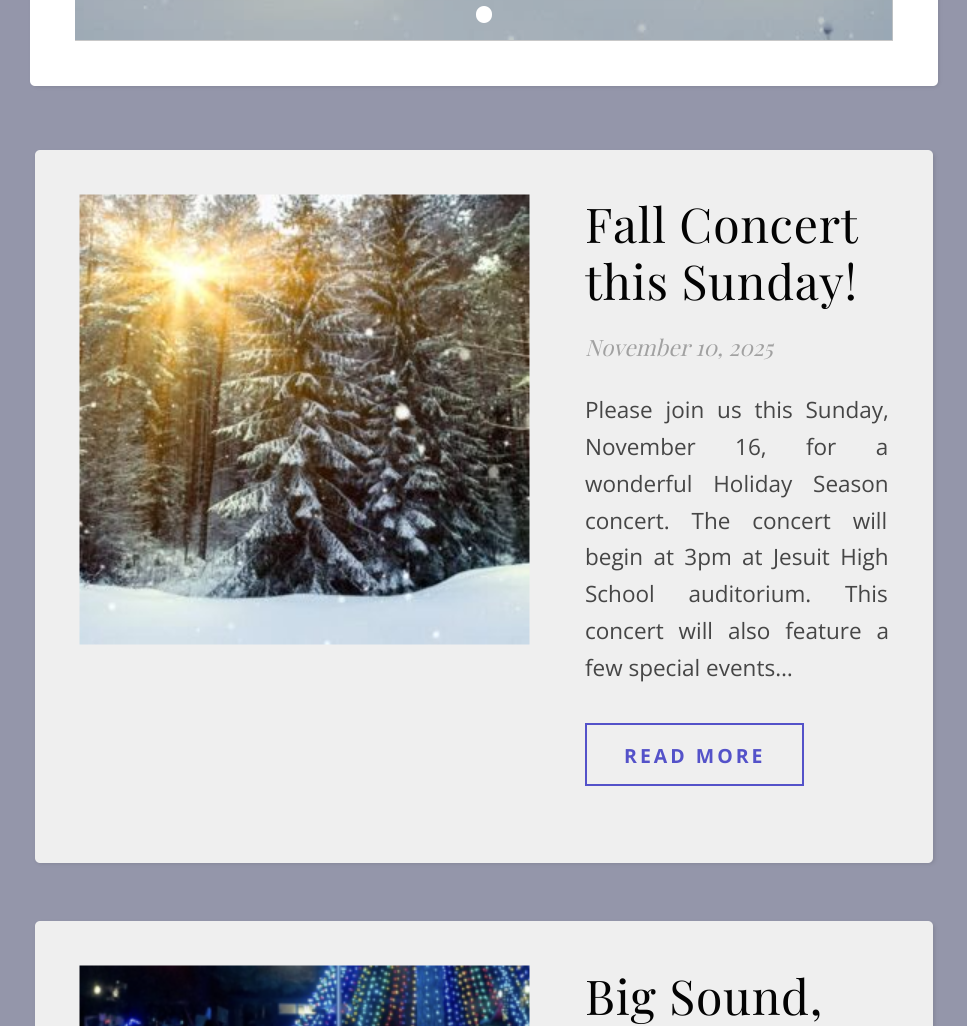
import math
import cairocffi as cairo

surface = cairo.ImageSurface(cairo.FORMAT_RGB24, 967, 1026)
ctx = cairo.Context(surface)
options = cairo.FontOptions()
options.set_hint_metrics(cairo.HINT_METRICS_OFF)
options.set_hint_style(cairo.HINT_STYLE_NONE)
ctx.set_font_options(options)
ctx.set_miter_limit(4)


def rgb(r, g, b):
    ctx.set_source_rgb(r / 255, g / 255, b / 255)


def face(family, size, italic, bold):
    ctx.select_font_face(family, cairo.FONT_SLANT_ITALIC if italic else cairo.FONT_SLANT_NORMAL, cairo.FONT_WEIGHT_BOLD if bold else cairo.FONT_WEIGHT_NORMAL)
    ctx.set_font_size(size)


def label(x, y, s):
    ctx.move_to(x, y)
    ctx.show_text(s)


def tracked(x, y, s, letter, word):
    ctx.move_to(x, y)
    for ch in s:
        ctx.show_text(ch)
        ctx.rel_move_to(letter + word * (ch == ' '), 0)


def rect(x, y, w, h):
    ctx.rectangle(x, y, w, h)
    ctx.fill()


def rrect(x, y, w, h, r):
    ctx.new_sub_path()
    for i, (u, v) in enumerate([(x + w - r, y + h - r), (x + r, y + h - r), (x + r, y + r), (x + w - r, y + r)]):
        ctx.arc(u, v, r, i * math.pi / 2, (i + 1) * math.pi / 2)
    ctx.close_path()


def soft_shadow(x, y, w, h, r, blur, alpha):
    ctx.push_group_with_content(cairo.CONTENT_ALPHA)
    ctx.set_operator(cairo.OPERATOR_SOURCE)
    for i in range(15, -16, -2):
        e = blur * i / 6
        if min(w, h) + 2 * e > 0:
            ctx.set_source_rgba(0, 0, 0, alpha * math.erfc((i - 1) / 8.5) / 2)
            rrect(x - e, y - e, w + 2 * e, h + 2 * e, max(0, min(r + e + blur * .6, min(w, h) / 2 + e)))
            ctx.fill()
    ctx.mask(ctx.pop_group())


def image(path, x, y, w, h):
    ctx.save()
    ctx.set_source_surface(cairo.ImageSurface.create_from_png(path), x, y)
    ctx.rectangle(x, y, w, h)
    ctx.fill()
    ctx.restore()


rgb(148, 150, 170)
ctx.paint()
rgb(0, 0, 0)
soft_shadow(32, -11, 907, 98, 5, 2, 0.1)
rgb(255, 255, 255)
rrect(30, -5, 908, 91, 5)
ctx.fill()
rgb(200, 200, 200)
rect(75, 0, 818, 41)
image('image0.png', 75, 0, 818, 40)
rgb(255, 255, 255)
rrect(477.5, 7.5, 13, 14, 6.5)
ctx.fill_preserve()
ctx.set_line_width(3)
ctx.stroke()
rgb(0, 0, 0)
soft_shadow(36, 152, 899, 712, 5, 2, 0.1)
rgb(239, 239, 239)
rrect(35, 150, 898, 713, 5)
ctx.fill()
image('image1.png', 79, 194, 451, 451)
face('Playfair Display', 48, 0, 0)
rgb(3, 3, 3)
tracked(585, 243, 'Fall Concert', 0.75, 0)
tracked(585, 300, 'this Sunday!', 0.75, 0)
face('Playfair Display', 22.5, 1, 0)
rgb(161, 161, 161)
label(585, 356, 'November 10, 2025')
face('Open Sans', 22.5, 0, 0)
rgb(70, 70, 70)
tracked(585, 418, 'Please join us this Sunday,', 0, 7)
tracked(585, 455, 'November 16, for a', 0, 33.5)
tracked(585, 492, 'wonderful Holiday Season', 0, 15)
tracked(585, 529, 'concert. The concert will', 0, 16)
tracked(585, 565, 'begin at 3pm at Jesuit High', 0, 4.5)
tracked(585, 602, 'School auditorium. This', 0, 28)
tracked(585, 639, 'concert will also feature a', 0, 9)
label(585, 676, 'few special events…')
ctx.rectangle(586, 724, 217, 61)
rgb(84, 82, 201)
ctx.set_line_width(2)
ctx.stroke()
face('Open Sans', 19.5, 0, 1)
tracked(624, 763, 'READ MORE', 3, 0)
rgb(0, 0, 0)
soft_shadow(36, 923, 899, 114, 5, 2, 0.1)
rgb(239, 239, 239)
rrect(35, 921, 898, 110, 5)
ctx.fill()
image('image2.png', 79, 965, 451, 61)
face('Playfair Display', 48, 0, 0)
rgb(3, 3, 3)
tracked(585, 1015, 'Big Sound,', 0.75, 0)
surface.write_to_png('render.png')
